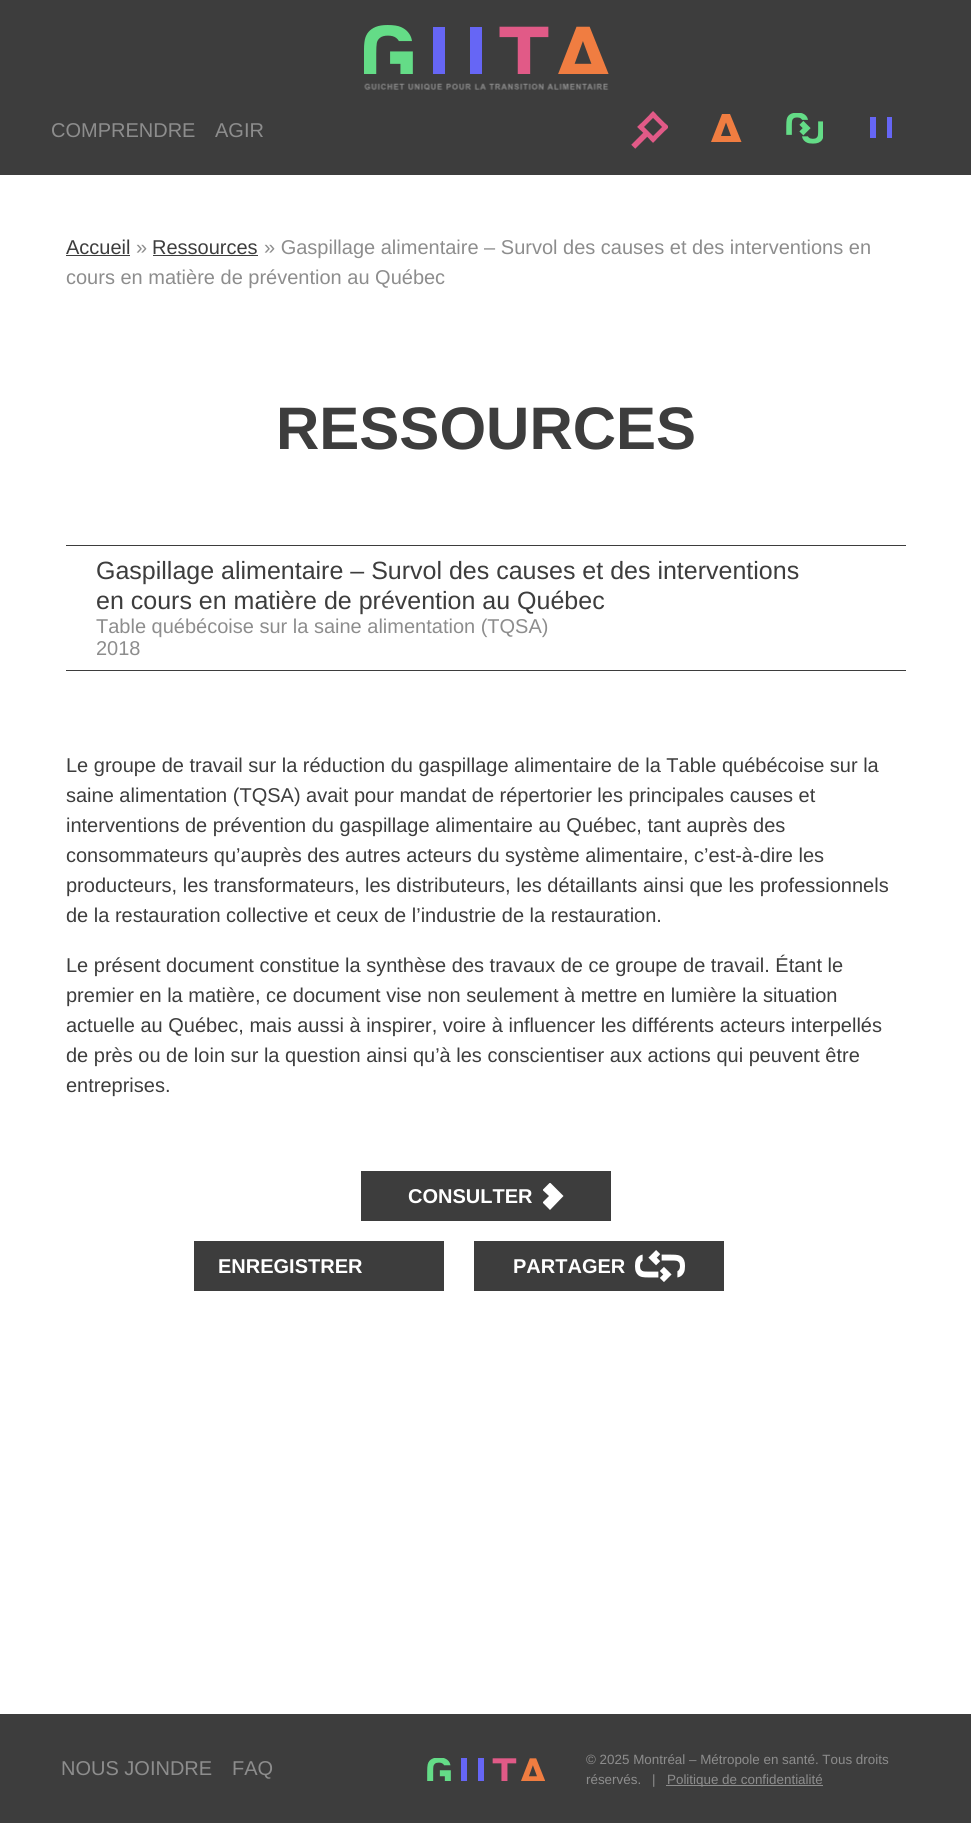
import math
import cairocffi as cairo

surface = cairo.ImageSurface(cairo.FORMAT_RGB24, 971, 1823)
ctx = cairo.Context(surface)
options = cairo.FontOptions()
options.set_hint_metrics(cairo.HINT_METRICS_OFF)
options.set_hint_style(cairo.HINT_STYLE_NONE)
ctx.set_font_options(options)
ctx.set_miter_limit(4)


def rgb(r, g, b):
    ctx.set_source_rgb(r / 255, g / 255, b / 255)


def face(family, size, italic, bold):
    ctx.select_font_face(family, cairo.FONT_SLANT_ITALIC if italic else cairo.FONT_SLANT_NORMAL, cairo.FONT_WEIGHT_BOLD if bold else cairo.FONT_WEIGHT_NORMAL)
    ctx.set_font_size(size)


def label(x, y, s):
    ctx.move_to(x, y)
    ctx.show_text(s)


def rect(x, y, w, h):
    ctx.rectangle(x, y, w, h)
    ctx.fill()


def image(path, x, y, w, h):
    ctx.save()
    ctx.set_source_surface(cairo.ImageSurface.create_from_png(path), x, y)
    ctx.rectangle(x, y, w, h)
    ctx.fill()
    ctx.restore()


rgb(255, 255, 255)
ctx.paint()
rgb(61, 61, 61)
rect(0, 0, 971, 175)
image('image0.png', 364, 25, 245, 49)
image('image1.png', 364, 83, 245, 7)
face('Liberation Sans', 20, 0, 0)
rgb(141, 141, 141)
label(51, 137, 'COMPRENDRE')
label(215, 137, 'AGIR')
image('image2.png', 631, 111, 37, 38)
rgb(240, 125, 65)
ctx.new_path()
ctx.move_to(741.5, 142)
ctx.line_to(730, 114)
ctx.line_to(722, 114)
ctx.line_to(711, 142)
ctx.close_path()
ctx.move_to(726, 122.5)
ctx.line_to(731, 136)
ctx.line_to(721, 136)
ctx.close_path()
ctx.fill()
image('image3.png', 786, 113, 37, 31)
rgb(102, 102, 245)
rect(870, 117, 6, 21)
rect(887, 117, 5, 21)
rgb(61, 61, 61)
label(66, 254, 'Accueil')
rect(66, 255, 64, 1)
rgb(141, 141, 141)
label(136, 254, '»')
rgb(61, 61, 61)
label(152, 254, 'Ressources')
rect(153, 255, 105, 1)
rgb(141, 141, 141)
label(264, 254, '» Gaspillage alimentaire – Survol des causes et des interventions en')
label(66, 284, 'cours en matière de prévention au Québec')
face('Liberation Sans', 60, 0, 1)
rgb(61, 61, 61)
label(276, 449, 'RESSOURCES')
rect(66, 545, 840, 1)
rect(66, 670, 840, 1)
face('Liberation Sans', 25, 0, 0)
label(96, 579, 'Gaspillage alimentaire – Survol des causes et des interventions')
label(96, 609, 'en cours en matière de prévention au Québec')
face('Liberation Sans', 20, 0, 0)
rgb(141, 141, 141)
label(96, 633, 'Table québécoise sur la saine alimentation (TQSA)')
label(96, 655, '2018')
rgb(61, 61, 61)
label(66, 772, 'Le groupe de travail sur la réduction du gaspillage alimentaire de la Table québécoise sur la')
label(66, 802, 'saine alimentation (TQSA) avait pour mandat de répertorier les principales causes et')
label(66, 832, 'interventions de prévention du gaspillage alimentaire au Québec, tant auprès des')
label(66, 862, 'consommateurs qu’auprès des autres acteurs du système alimentaire, c’est-à-dire les')
label(66, 892, 'producteurs, les transformateurs, les distributeurs, les détaillants ainsi que les professionnels')
label(66, 922, 'de la restauration collective et ceux de l’industrie de la restauration.')
label(66, 972, 'Le présent document constitue la synthèse des travaux de ce groupe de travail. Étant le')
label(66, 1002, 'premier en la matière, ce document vise non seulement à mettre en lumière la situation')
label(66, 1032, 'actuelle au Québec, mais aussi à inspirer, voire à influencer les différents acteurs interpellés')
label(66, 1062, 'de près ou de loin sur la question ainsi qu’à les conscientiser aux actions qui peuvent être')
label(66, 1092, 'entreprises.')
rect(361, 1171, 250, 50)
face('Liberation Sans', 20, 0, 1)
rgb(255, 255, 255)
label(408, 1203, 'CONSULTER')
ctx.save()
ctx.rectangle(543, 1183, 21, 27)
ctx.clip()
ctx.new_path()
ctx.move_to(550, 1182.5)
ctx.line_to(542.5, 1190)
ctx.line_to(549, 1196)
ctx.line_to(542.5, 1202.5)
ctx.line_to(550, 1210)
ctx.line_to(563.5, 1196)
ctx.close_path()
ctx.fill()
ctx.restore()
rgb(61, 61, 61)
rect(194, 1241, 250, 50)
rgb(255, 255, 255)
label(218, 1273, 'ENREGISTRER')
rgb(61, 61, 61)
rect(474, 1241, 250, 50)
rgb(255, 255, 255)
label(513, 1273, 'PARTAGER')
image('image4.png', 635, 1250, 50, 32)
rgb(61, 61, 61)
rect(0, 1714, 971, 109)
face('Liberation Sans', 20, 0, 0)
rgb(141, 141, 141)
label(61, 1775, 'NOUS JOINDRE')
label(232, 1775, 'FAQ')
image('image5.png', 427, 1758, 118, 23)
face('Liberation Sans', 13.4, 0, 0)
label(586, 1764, '© 2025 Montréal – Métropole en santé. Tous droits')
label(586, 1784, 'réservés.')
label(652, 1784, '|')
rect(666, 1785, 157, 1)
label(667, 1784, 'Politique de confidentialité')
surface.write_to_png('render.png')
